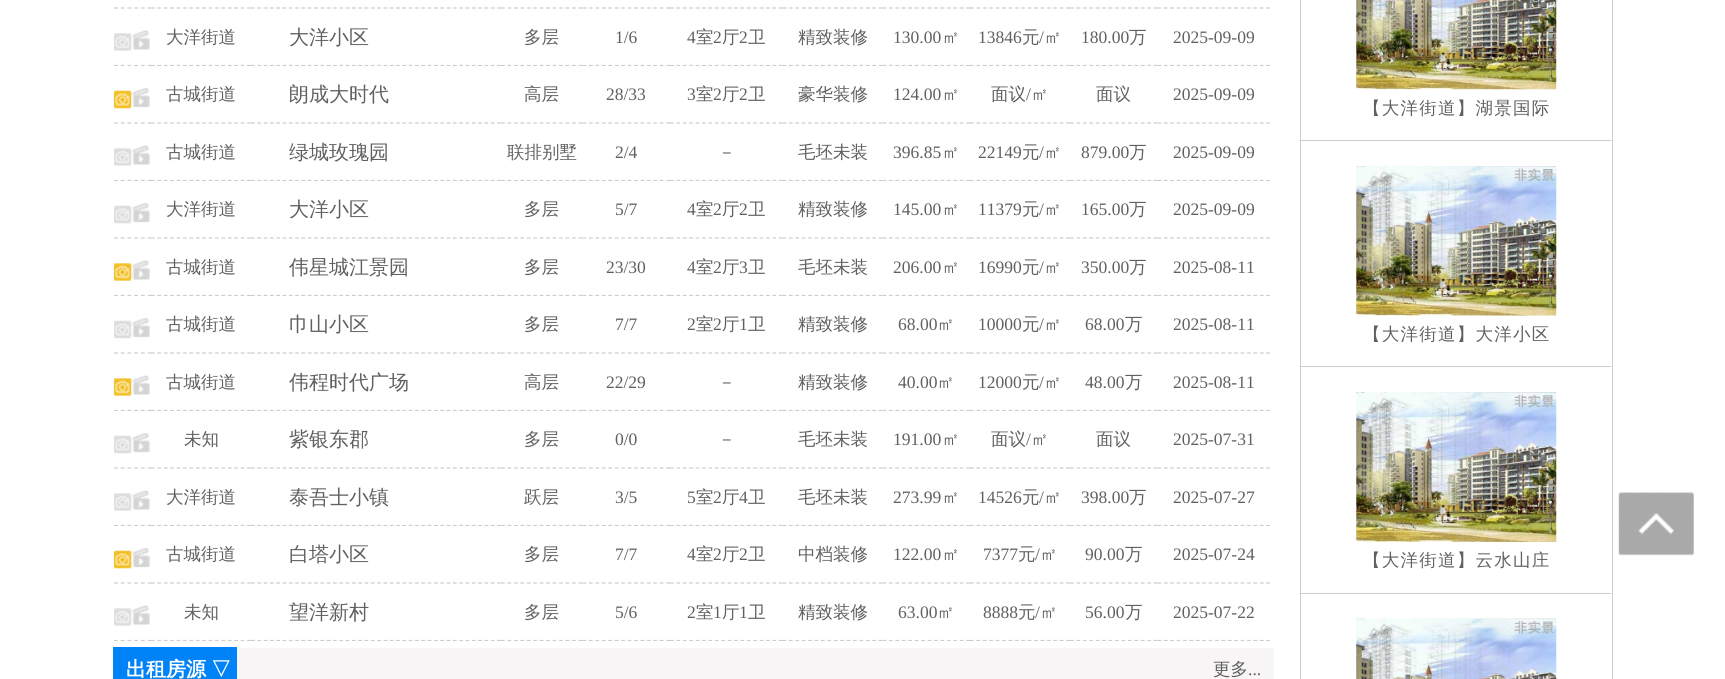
import math
import cairocffi as cairo

surface = cairo.ImageSurface(cairo.FORMAT_RGB24, 1725, 679)
ctx = cairo.Context(surface)
options = cairo.FontOptions()
options.set_hint_metrics(cairo.HINT_METRICS_OFF)
options.set_hint_style(cairo.HINT_STYLE_NONE)
ctx.set_font_options(options)
ctx.set_miter_limit(4)


def rgb(r, g, b):
    ctx.set_source_rgb(r / 255, g / 255, b / 255)


def face(family, size, italic, bold):
    ctx.select_font_face(family, cairo.FONT_SLANT_ITALIC if italic else cairo.FONT_SLANT_NORMAL, cairo.FONT_WEIGHT_BOLD if bold else cairo.FONT_WEIGHT_NORMAL)
    ctx.set_font_size(size)


def label(x, y, s):
    ctx.move_to(x, y)
    ctx.show_text(s)


def tracked(x, y, s, letter, word):
    ctx.move_to(x, y)
    for ch in s:
        ctx.show_text(ch)
        ctx.rel_move_to(letter + word * (ch == ' '), 0)


def rect(x, y, w, h):
    ctx.rectangle(x, y, w, h)
    ctx.fill()


def image(path, x, y, w, h):
    ctx.save()
    ctx.set_source_surface(cairo.ImageSurface.create_from_png(path), x, y)
    ctx.rectangle(x, y, w, h)
    ctx.fill()
    ctx.restore()


rgb(255, 255, 255)
ctx.paint()
ctx.new_path()
ctx.move_to(114, 8)
ctx.line_to(151, 8)
rgb(204, 204, 204)
ctx.set_line_width(1.2)
ctx.set_dash([3.75, 3])
ctx.stroke()
ctx.new_path()
ctx.move_to(151, 8)
ctx.line_to(251, 8)
ctx.set_dash([3.75, 2.66])
ctx.stroke()
ctx.new_path()
ctx.move_to(251, 8)
ctx.line_to(501, 8)
ctx.set_dash([3.75, 2.56])
ctx.stroke()
ctx.new_path()
ctx.move_to(501, 8)
ctx.line_to(582.5, 8)
ctx.set_dash([3.75, 2.71])
ctx.stroke()
ctx.new_path()
ctx.move_to(582.5, 8)
ctx.line_to(670, 8)
ctx.set_dash([3.75, 2.69])
ctx.stroke()
ctx.new_path()
ctx.move_to(670, 8)
ctx.line_to(782.5, 8)
ctx.set_dash([3.75, 2.65])
ctx.stroke()
ctx.new_path()
ctx.move_to(782.5, 8)
ctx.line_to(882.5, 8)
ctx.set_dash([3.75, 2.66])
ctx.stroke()
ctx.new_path()
ctx.move_to(882.5, 8)
ctx.line_to(970, 8)
ctx.set_dash([3.75, 2.69])
ctx.stroke()
ctx.new_path()
ctx.move_to(970, 8)
ctx.line_to(1070, 8)
ctx.set_dash([3.75, 2.66])
ctx.stroke()
ctx.new_path()
ctx.move_to(1070, 8)
ctx.line_to(1157.5, 8)
ctx.set_dash([3.75, 2.69])
ctx.stroke()
ctx.new_path()
ctx.move_to(1157.5, 8)
ctx.line_to(1270, 8)
ctx.set_dash([3.75, 2.65])
ctx.stroke()
image('image0.png', 114, 30, 36, 21)
ctx.save()
ctx.rectangle(114, 15, 1160, 51)
ctx.clip()
ctx.new_path()
ctx.move_to(114, 65.5)
ctx.line_to(151, 65.5)
ctx.set_dash([3.75, 3])
ctx.stroke()
ctx.new_path()
ctx.move_to(151, 65.5)
ctx.line_to(251, 65.5)
ctx.set_dash([3.75, 2.66])
ctx.stroke()
ctx.restore()
face('WenQuanYi Zen Hei Medium', 17.5, 0, 0)
rgb(96, 96, 96)
label(166, 43, '大洋街道')
ctx.save()
ctx.rectangle(114, 15, 1160, 51)
ctx.clip()
ctx.new_path()
ctx.move_to(251, 65.5)
ctx.line_to(501, 65.5)
rgb(204, 204, 204)
ctx.set_dash([3.75, 2.56])
ctx.stroke()
ctx.restore()
face('WenQuanYi Zen Hei Medium', 20, 0, 0)
label(289, 44, '大洋小区')
ctx.save()
ctx.rectangle(114, 15, 1160, 51)
ctx.clip()
ctx.new_path()
ctx.move_to(501, 65.5)
ctx.line_to(582.5, 65.5)
rgb(204, 204, 204)
ctx.set_dash([3.75, 2.71])
ctx.stroke()
ctx.restore()
face('WenQuanYi Zen Hei Medium', 17.5, 0, 0)
label(524, 43, '多层')
ctx.save()
ctx.rectangle(114, 15, 1160, 51)
ctx.clip()
ctx.new_path()
ctx.move_to(582.5, 65.5)
ctx.line_to(670, 65.5)
rgb(204, 204, 204)
ctx.set_dash([3.75, 2.69])
ctx.stroke()
ctx.restore()
face('Liberation Serif', 17.5, 0, 0)
label(615, 43, '1/6')
ctx.save()
ctx.rectangle(114, 15, 1160, 51)
ctx.clip()
ctx.new_path()
ctx.move_to(670, 65.5)
ctx.line_to(782.5, 65.5)
rgb(204, 204, 204)
ctx.stroke()
ctx.restore()
label(687, 43, '4')
face('WenQuanYi Zen Hei Medium', 17.5, 0, 0)
label(696, 43, '室')
face('Liberation Serif', 17.5, 0, 0)
label(713, 43, '2')
face('WenQuanYi Zen Hei Medium', 17.5, 0, 0)
label(722, 43, '厅')
face('Liberation Serif', 17.5, 0, 0)
label(739, 43, '2')
face('WenQuanYi Zen Hei Medium', 17.5, 0, 0)
label(748, 43, '卫')
ctx.save()
ctx.rectangle(114, 15, 1160, 51)
ctx.clip()
ctx.new_path()
ctx.move_to(782.5, 65.5)
ctx.line_to(882.5, 65.5)
rgb(204, 204, 204)
ctx.set_dash([3.75, 2.66])
ctx.stroke()
ctx.restore()
label(798, 43, '精致装修')
ctx.save()
ctx.rectangle(114, 15, 1160, 51)
ctx.clip()
ctx.new_path()
ctx.move_to(882.5, 65.5)
ctx.line_to(970, 65.5)
rgb(204, 204, 204)
ctx.set_dash([3.75, 2.69])
ctx.stroke()
ctx.restore()
face('Liberation Serif', 17.5, 0, 0)
label(893, 43, '130.00')
face('WenQuanYi Zen Hei Medium', 17.5, 0, 0)
label(942, 43, '㎡')
ctx.save()
ctx.rectangle(114, 15, 1160, 51)
ctx.clip()
ctx.new_path()
ctx.move_to(970, 65.5)
ctx.line_to(1070, 65.5)
rgb(204, 204, 204)
ctx.set_dash([3.75, 2.66])
ctx.stroke()
ctx.restore()
face('Liberation Serif', 17.5, 0, 0)
label(978, 43, '13846')
face('WenQuanYi Zen Hei Medium', 17.5, 0, 0)
label(1022, 43, '元')
face('Liberation Serif', 17.5, 0, 0)
label(1039, 43, '/')
face('WenQuanYi Zen Hei Medium', 17.5, 0, 0)
label(1044, 43, '㎡')
ctx.save()
ctx.rectangle(114, 15, 1160, 51)
ctx.clip()
ctx.new_path()
ctx.move_to(1070, 65.5)
ctx.line_to(1157.5, 65.5)
rgb(204, 204, 204)
ctx.set_dash([3.75, 2.69])
ctx.stroke()
ctx.restore()
face('Liberation Serif', 17.5, 0, 0)
label(1081, 43, '180.00')
face('WenQuanYi Zen Hei Medium', 17.5, 0, 0)
label(1129, 43, '万')
ctx.save()
ctx.rectangle(114, 15, 1160, 51)
ctx.clip()
ctx.new_path()
ctx.move_to(1157.5, 65.5)
ctx.line_to(1270, 65.5)
rgb(204, 204, 204)
ctx.stroke()
ctx.restore()
face('Liberation Serif', 17.5, 0, 0)
label(1173, 43, '2025-09-09')
image('image1.png', 113, 88, 37, 21)
ctx.new_path()
ctx.move_to(114, 123)
ctx.line_to(151, 123)
rgb(204, 204, 204)
ctx.set_dash([3.75, 3])
ctx.stroke()
ctx.new_path()
ctx.move_to(151, 123)
ctx.line_to(251, 123)
ctx.set_dash([3.75, 2.66])
ctx.stroke()
face('WenQuanYi Zen Hei Medium', 17.5, 0, 0)
rgb(96, 96, 96)
label(166, 100, '古城街道')
ctx.new_path()
ctx.move_to(251, 123)
ctx.line_to(501, 123)
rgb(204, 204, 204)
ctx.set_dash([3.75, 2.56])
ctx.stroke()
face('WenQuanYi Zen Hei Medium', 20, 0, 0)
rgb(96, 96, 96)
label(289, 101, '朗成大时代')
ctx.new_path()
ctx.move_to(501, 123)
ctx.line_to(582.5, 123)
rgb(204, 204, 204)
ctx.set_dash([3.75, 2.71])
ctx.stroke()
face('WenQuanYi Zen Hei Medium', 17.5, 0, 0)
rgb(96, 96, 96)
label(524, 100, '高层')
ctx.new_path()
ctx.move_to(582.5, 123)
ctx.line_to(670, 123)
rgb(204, 204, 204)
ctx.set_dash([3.75, 2.69])
ctx.stroke()
face('Liberation Serif', 17.5, 0, 0)
rgb(96, 96, 96)
label(606, 100, '28/33')
ctx.new_path()
ctx.move_to(670, 123)
ctx.line_to(782.5, 123)
rgb(204, 204, 204)
ctx.set_dash([3.75, 2.65])
ctx.stroke()
rgb(96, 96, 96)
label(687, 100, '3')
face('WenQuanYi Zen Hei Medium', 17.5, 0, 0)
label(696, 100, '室')
face('Liberation Serif', 17.5, 0, 0)
label(713, 100, '2')
face('WenQuanYi Zen Hei Medium', 17.5, 0, 0)
label(722, 100, '厅')
face('Liberation Serif', 17.5, 0, 0)
label(739, 100, '2')
face('WenQuanYi Zen Hei Medium', 17.5, 0, 0)
label(748, 100, '卫')
ctx.new_path()
ctx.move_to(782.5, 123)
ctx.line_to(882.5, 123)
rgb(204, 204, 204)
ctx.set_dash([3.75, 2.66])
ctx.stroke()
rgb(96, 96, 96)
label(798, 100, '豪华装修')
ctx.new_path()
ctx.move_to(882.5, 123)
ctx.line_to(970, 123)
rgb(204, 204, 204)
ctx.set_dash([3.75, 2.69])
ctx.stroke()
face('Liberation Serif', 17.5, 0, 0)
rgb(96, 96, 96)
label(893, 100, '124.00')
face('WenQuanYi Zen Hei Medium', 17.5, 0, 0)
label(942, 100, '㎡')
ctx.new_path()
ctx.move_to(970, 123)
ctx.line_to(1070, 123)
rgb(204, 204, 204)
ctx.set_dash([3.75, 2.66])
ctx.stroke()
rgb(96, 96, 96)
label(991, 100, '面议')
face('Liberation Serif', 17.5, 0, 0)
label(1026, 100, '/')
face('WenQuanYi Zen Hei Medium', 17.5, 0, 0)
label(1031, 100, '㎡')
ctx.new_path()
ctx.move_to(1070, 123)
ctx.line_to(1157.5, 123)
rgb(204, 204, 204)
ctx.set_dash([3.75, 2.69])
ctx.stroke()
rgb(96, 96, 96)
label(1096, 100, '面议')
ctx.new_path()
ctx.move_to(1157.5, 123)
ctx.line_to(1270, 123)
rgb(204, 204, 204)
ctx.set_dash([3.75, 2.65])
ctx.stroke()
face('Liberation Serif', 17.5, 0, 0)
rgb(96, 96, 96)
label(1173, 100, '2025-09-09')
image('image2.png', 114, 145, 36, 21)
ctx.save()
ctx.rectangle(114, 130, 1160, 51)
ctx.clip()
ctx.new_path()
ctx.move_to(114, 180.5)
ctx.line_to(151, 180.5)
rgb(204, 204, 204)
ctx.set_dash([3.75, 3])
ctx.stroke()
ctx.new_path()
ctx.move_to(151, 180.5)
ctx.line_to(251, 180.5)
ctx.set_dash([3.75, 2.66])
ctx.stroke()
ctx.restore()
face('WenQuanYi Zen Hei Medium', 17.5, 0, 0)
label(166, 158, '古城街道')
ctx.save()
ctx.rectangle(114, 130, 1160, 51)
ctx.clip()
ctx.new_path()
ctx.move_to(251, 180.5)
ctx.line_to(501, 180.5)
rgb(204, 204, 204)
ctx.set_dash([3.75, 2.56])
ctx.stroke()
ctx.restore()
face('WenQuanYi Zen Hei Medium', 20, 0, 0)
label(289, 159, '绿城玫瑰园')
ctx.save()
ctx.rectangle(114, 130, 1160, 51)
ctx.clip()
ctx.new_path()
ctx.move_to(501, 180.5)
ctx.line_to(582.5, 180.5)
rgb(204, 204, 204)
ctx.set_dash([3.75, 2.71])
ctx.stroke()
ctx.restore()
face('WenQuanYi Zen Hei Medium', 17.5, 0, 0)
label(507, 158, '联排别墅')
ctx.save()
ctx.rectangle(114, 130, 1160, 51)
ctx.clip()
ctx.new_path()
ctx.move_to(582.5, 180.5)
ctx.line_to(670, 180.5)
rgb(204, 204, 204)
ctx.set_dash([3.75, 2.69])
ctx.stroke()
ctx.restore()
face('Liberation Serif', 17.5, 0, 0)
label(615, 158, '2/4')
ctx.save()
ctx.rectangle(114, 130, 1160, 51)
ctx.clip()
ctx.new_path()
ctx.move_to(670, 180.5)
ctx.line_to(782.5, 180.5)
rgb(204, 204, 204)
ctx.stroke()
ctx.restore()
face('WenQuanYi Zen Hei Medium', 17.5, 0, 0)
label(718, 158, '－')
ctx.save()
ctx.rectangle(114, 130, 1160, 51)
ctx.clip()
ctx.new_path()
ctx.move_to(782.5, 180.5)
ctx.line_to(882.5, 180.5)
rgb(204, 204, 204)
ctx.set_dash([3.75, 2.66])
ctx.stroke()
ctx.restore()
label(798, 158, '毛坯未装')
ctx.save()
ctx.rectangle(114, 130, 1160, 51)
ctx.clip()
ctx.new_path()
ctx.move_to(882.5, 180.5)
ctx.line_to(970, 180.5)
rgb(204, 204, 204)
ctx.set_dash([3.75, 2.69])
ctx.stroke()
ctx.restore()
face('Liberation Serif', 17.5, 0, 0)
label(893, 158, '396.85')
face('WenQuanYi Zen Hei Medium', 17.5, 0, 0)
label(942, 158, '㎡')
ctx.save()
ctx.rectangle(114, 130, 1160, 51)
ctx.clip()
ctx.new_path()
ctx.move_to(970, 180.5)
ctx.line_to(1070, 180.5)
rgb(204, 204, 204)
ctx.set_dash([3.75, 2.66])
ctx.stroke()
ctx.restore()
face('Liberation Serif', 17.5, 0, 0)
label(978, 158, '22149')
face('WenQuanYi Zen Hei Medium', 17.5, 0, 0)
label(1022, 158, '元')
face('Liberation Serif', 17.5, 0, 0)
label(1039, 158, '/')
face('WenQuanYi Zen Hei Medium', 17.5, 0, 0)
label(1044, 158, '㎡')
ctx.save()
ctx.rectangle(114, 130, 1160, 51)
ctx.clip()
ctx.new_path()
ctx.move_to(1070, 180.5)
ctx.line_to(1157.5, 180.5)
rgb(204, 204, 204)
ctx.set_dash([3.75, 2.69])
ctx.stroke()
ctx.restore()
face('Liberation Serif', 17.5, 0, 0)
label(1081, 158, '879.00')
face('WenQuanYi Zen Hei Medium', 17.5, 0, 0)
label(1129, 158, '万')
ctx.save()
ctx.rectangle(114, 130, 1160, 51)
ctx.clip()
ctx.new_path()
ctx.move_to(1157.5, 180.5)
ctx.line_to(1270, 180.5)
rgb(204, 204, 204)
ctx.stroke()
ctx.restore()
face('Liberation Serif', 17.5, 0, 0)
label(1173, 158, '2025-09-09')
image('image3.png', 114, 203, 36, 21)
ctx.new_path()
ctx.move_to(114, 238)
ctx.line_to(151, 238)
rgb(204, 204, 204)
ctx.set_dash([3.75, 3])
ctx.stroke()
ctx.new_path()
ctx.move_to(151, 238)
ctx.line_to(251, 238)
ctx.set_dash([3.75, 2.66])
ctx.stroke()
face('WenQuanYi Zen Hei Medium', 17.5, 0, 0)
rgb(96, 96, 96)
label(166, 215, '大洋街道')
ctx.new_path()
ctx.move_to(251, 238)
ctx.line_to(501, 238)
rgb(204, 204, 204)
ctx.set_dash([3.75, 2.56])
ctx.stroke()
face('WenQuanYi Zen Hei Medium', 20, 0, 0)
rgb(96, 96, 96)
label(289, 216, '大洋小区')
ctx.new_path()
ctx.move_to(501, 238)
ctx.line_to(582.5, 238)
rgb(204, 204, 204)
ctx.set_dash([3.75, 2.71])
ctx.stroke()
face('WenQuanYi Zen Hei Medium', 17.5, 0, 0)
rgb(96, 96, 96)
label(524, 215, '多层')
ctx.new_path()
ctx.move_to(582.5, 238)
ctx.line_to(670, 238)
rgb(204, 204, 204)
ctx.set_dash([3.75, 2.69])
ctx.stroke()
face('Liberation Serif', 17.5, 0, 0)
rgb(96, 96, 96)
label(615, 215, '5/7')
ctx.new_path()
ctx.move_to(670, 238)
ctx.line_to(782.5, 238)
rgb(204, 204, 204)
ctx.set_dash([3.75, 2.65])
ctx.stroke()
rgb(96, 96, 96)
label(687, 215, '4')
face('WenQuanYi Zen Hei Medium', 17.5, 0, 0)
label(696, 215, '室')
face('Liberation Serif', 17.5, 0, 0)
label(713, 215, '2')
face('WenQuanYi Zen Hei Medium', 17.5, 0, 0)
label(722, 215, '厅')
face('Liberation Serif', 17.5, 0, 0)
label(739, 215, '2')
face('WenQuanYi Zen Hei Medium', 17.5, 0, 0)
label(748, 215, '卫')
ctx.new_path()
ctx.move_to(782.5, 238)
ctx.line_to(882.5, 238)
rgb(204, 204, 204)
ctx.set_dash([3.75, 2.66])
ctx.stroke()
rgb(96, 96, 96)
label(798, 215, '精致装修')
ctx.new_path()
ctx.move_to(882.5, 238)
ctx.line_to(970, 238)
rgb(204, 204, 204)
ctx.set_dash([3.75, 2.69])
ctx.stroke()
face('Liberation Serif', 17.5, 0, 0)
rgb(96, 96, 96)
label(893, 215, '145.00')
face('WenQuanYi Zen Hei Medium', 17.5, 0, 0)
label(942, 215, '㎡')
ctx.new_path()
ctx.move_to(970, 238)
ctx.line_to(1070, 238)
rgb(204, 204, 204)
ctx.set_dash([3.75, 2.66])
ctx.stroke()
face('Liberation Serif', 17.5, 0, 0)
rgb(96, 96, 96)
label(978, 215, '11379')
face('WenQuanYi Zen Hei Medium', 17.5, 0, 0)
label(1022, 215, '元')
face('Liberation Serif', 17.5, 0, 0)
label(1039, 215, '/')
face('WenQuanYi Zen Hei Medium', 17.5, 0, 0)
label(1044, 215, '㎡')
ctx.new_path()
ctx.move_to(1070, 238)
ctx.line_to(1157.5, 238)
rgb(204, 204, 204)
ctx.set_dash([3.75, 2.69])
ctx.stroke()
face('Liberation Serif', 17.5, 0, 0)
rgb(96, 96, 96)
label(1081, 215, '165.00')
face('WenQuanYi Zen Hei Medium', 17.5, 0, 0)
label(1129, 215, '万')
ctx.new_path()
ctx.move_to(1157.5, 238)
ctx.line_to(1270, 238)
rgb(204, 204, 204)
ctx.set_dash([3.75, 2.65])
ctx.stroke()
face('Liberation Serif', 17.5, 0, 0)
rgb(96, 96, 96)
label(1173, 215, '2025-09-09')
image('image4.png', 113, 260, 37, 21)
ctx.save()
ctx.rectangle(114, 245, 1160, 51)
ctx.clip()
ctx.new_path()
ctx.move_to(114, 295.5)
ctx.line_to(151, 295.5)
rgb(204, 204, 204)
ctx.set_dash([3.75, 3])
ctx.stroke()
ctx.new_path()
ctx.move_to(151, 295.5)
ctx.line_to(251, 295.5)
ctx.set_dash([3.75, 2.66])
ctx.stroke()
ctx.restore()
face('WenQuanYi Zen Hei Medium', 17.5, 0, 0)
label(166, 273, '古城街道')
ctx.save()
ctx.rectangle(114, 245, 1160, 51)
ctx.clip()
ctx.new_path()
ctx.move_to(251, 295.5)
ctx.line_to(501, 295.5)
rgb(204, 204, 204)
ctx.set_dash([3.75, 2.56])
ctx.stroke()
ctx.restore()
face('WenQuanYi Zen Hei Medium', 20, 0, 0)
label(289, 274, '伟星城江景园')
ctx.save()
ctx.rectangle(114, 245, 1160, 51)
ctx.clip()
ctx.new_path()
ctx.move_to(501, 295.5)
ctx.line_to(582.5, 295.5)
rgb(204, 204, 204)
ctx.set_dash([3.75, 2.71])
ctx.stroke()
ctx.restore()
face('WenQuanYi Zen Hei Medium', 17.5, 0, 0)
label(524, 273, '多层')
ctx.save()
ctx.rectangle(114, 245, 1160, 51)
ctx.clip()
ctx.new_path()
ctx.move_to(582.5, 295.5)
ctx.line_to(670, 295.5)
rgb(204, 204, 204)
ctx.set_dash([3.75, 2.69])
ctx.stroke()
ctx.restore()
face('Liberation Serif', 17.5, 0, 0)
label(606, 273, '23/30')
ctx.save()
ctx.rectangle(114, 245, 1160, 51)
ctx.clip()
ctx.new_path()
ctx.move_to(670, 295.5)
ctx.line_to(782.5, 295.5)
rgb(204, 204, 204)
ctx.stroke()
ctx.restore()
label(687, 273, '4')
face('WenQuanYi Zen Hei Medium', 17.5, 0, 0)
label(696, 273, '室')
face('Liberation Serif', 17.5, 0, 0)
label(713, 273, '2')
face('WenQuanYi Zen Hei Medium', 17.5, 0, 0)
label(722, 273, '厅')
face('Liberation Serif', 17.5, 0, 0)
label(739, 273, '3')
face('WenQuanYi Zen Hei Medium', 17.5, 0, 0)
label(748, 273, '卫')
ctx.save()
ctx.rectangle(114, 245, 1160, 51)
ctx.clip()
ctx.new_path()
ctx.move_to(782.5, 295.5)
ctx.line_to(882.5, 295.5)
rgb(204, 204, 204)
ctx.set_dash([3.75, 2.66])
ctx.stroke()
ctx.restore()
label(798, 273, '毛坯未装')
ctx.save()
ctx.rectangle(114, 245, 1160, 51)
ctx.clip()
ctx.new_path()
ctx.move_to(882.5, 295.5)
ctx.line_to(970, 295.5)
rgb(204, 204, 204)
ctx.set_dash([3.75, 2.69])
ctx.stroke()
ctx.restore()
face('Liberation Serif', 17.5, 0, 0)
label(893, 273, '206.00')
face('WenQuanYi Zen Hei Medium', 17.5, 0, 0)
label(942, 273, '㎡')
ctx.save()
ctx.rectangle(114, 245, 1160, 51)
ctx.clip()
ctx.new_path()
ctx.move_to(970, 295.5)
ctx.line_to(1070, 295.5)
rgb(204, 204, 204)
ctx.set_dash([3.75, 2.66])
ctx.stroke()
ctx.restore()
face('Liberation Serif', 17.5, 0, 0)
label(978, 273, '16990')
face('WenQuanYi Zen Hei Medium', 17.5, 0, 0)
label(1022, 273, '元')
face('Liberation Serif', 17.5, 0, 0)
label(1039, 273, '/')
face('WenQuanYi Zen Hei Medium', 17.5, 0, 0)
label(1044, 273, '㎡')
ctx.save()
ctx.rectangle(114, 245, 1160, 51)
ctx.clip()
ctx.new_path()
ctx.move_to(1070, 295.5)
ctx.line_to(1157.5, 295.5)
rgb(204, 204, 204)
ctx.set_dash([3.75, 2.69])
ctx.stroke()
ctx.restore()
face('Liberation Serif', 17.5, 0, 0)
label(1081, 273, '350.00')
face('WenQuanYi Zen Hei Medium', 17.5, 0, 0)
label(1129, 273, '万')
ctx.save()
ctx.rectangle(114, 245, 1160, 51)
ctx.clip()
ctx.new_path()
ctx.move_to(1157.5, 295.5)
ctx.line_to(1270, 295.5)
rgb(204, 204, 204)
ctx.stroke()
ctx.restore()
face('Liberation Serif', 17.5, 0, 0)
label(1173, 273, '2025-08-11')
image('image5.png', 114, 318, 36, 21)
ctx.new_path()
ctx.move_to(114, 353)
ctx.line_to(151, 353)
rgb(204, 204, 204)
ctx.set_dash([3.75, 3])
ctx.stroke()
ctx.new_path()
ctx.move_to(151, 353)
ctx.line_to(251, 353)
ctx.set_dash([3.75, 2.66])
ctx.stroke()
face('WenQuanYi Zen Hei Medium', 17.5, 0, 0)
rgb(96, 96, 96)
label(166, 330, '古城街道')
ctx.new_path()
ctx.move_to(251, 353)
ctx.line_to(501, 353)
rgb(204, 204, 204)
ctx.set_dash([3.75, 2.56])
ctx.stroke()
face('WenQuanYi Zen Hei Medium', 20, 0, 0)
rgb(96, 96, 96)
label(289, 331, '巾山小区')
ctx.new_path()
ctx.move_to(501, 353)
ctx.line_to(582.5, 353)
rgb(204, 204, 204)
ctx.set_dash([3.75, 2.71])
ctx.stroke()
face('WenQuanYi Zen Hei Medium', 17.5, 0, 0)
rgb(96, 96, 96)
label(524, 330, '多层')
ctx.new_path()
ctx.move_to(582.5, 353)
ctx.line_to(670, 353)
rgb(204, 204, 204)
ctx.set_dash([3.75, 2.69])
ctx.stroke()
face('Liberation Serif', 17.5, 0, 0)
rgb(96, 96, 96)
label(615, 330, '7/7')
ctx.new_path()
ctx.move_to(670, 353)
ctx.line_to(782.5, 353)
rgb(204, 204, 204)
ctx.set_dash([3.75, 2.65])
ctx.stroke()
rgb(96, 96, 96)
label(687, 330, '2')
face('WenQuanYi Zen Hei Medium', 17.5, 0, 0)
label(696, 330, '室')
face('Liberation Serif', 17.5, 0, 0)
label(713, 330, '2')
face('WenQuanYi Zen Hei Medium', 17.5, 0, 0)
label(722, 330, '厅')
face('Liberation Serif', 17.5, 0, 0)
label(739, 330, '1')
face('WenQuanYi Zen Hei Medium', 17.5, 0, 0)
label(748, 330, '卫')
ctx.new_path()
ctx.move_to(782.5, 353)
ctx.line_to(882.5, 353)
rgb(204, 204, 204)
ctx.set_dash([3.75, 2.66])
ctx.stroke()
rgb(96, 96, 96)
label(798, 330, '精致装修')
ctx.new_path()
ctx.move_to(882.5, 353)
ctx.line_to(970, 353)
rgb(204, 204, 204)
ctx.set_dash([3.75, 2.69])
ctx.stroke()
face('Liberation Serif', 17.5, 0, 0)
rgb(96, 96, 96)
label(898, 330, '68.00')
face('WenQuanYi Zen Hei Medium', 17.5, 0, 0)
label(937, 330, '㎡')
ctx.new_path()
ctx.move_to(970, 353)
ctx.line_to(1070, 353)
rgb(204, 204, 204)
ctx.set_dash([3.75, 2.66])
ctx.stroke()
face('Liberation Serif', 17.5, 0, 0)
rgb(96, 96, 96)
label(978, 330, '10000')
face('WenQuanYi Zen Hei Medium', 17.5, 0, 0)
label(1022, 330, '元')
face('Liberation Serif', 17.5, 0, 0)
label(1039, 330, '/')
face('WenQuanYi Zen Hei Medium', 17.5, 0, 0)
label(1044, 330, '㎡')
ctx.new_path()
ctx.move_to(1070, 353)
ctx.line_to(1157.5, 353)
rgb(204, 204, 204)
ctx.set_dash([3.75, 2.69])
ctx.stroke()
face('Liberation Serif', 17.5, 0, 0)
rgb(96, 96, 96)
label(1085, 330, '68.00')
face('WenQuanYi Zen Hei Medium', 17.5, 0, 0)
label(1125, 330, '万')
ctx.new_path()
ctx.move_to(1157.5, 353)
ctx.line_to(1270, 353)
rgb(204, 204, 204)
ctx.set_dash([3.75, 2.65])
ctx.stroke()
face('Liberation Serif', 17.5, 0, 0)
rgb(96, 96, 96)
label(1173, 330, '2025-08-11')
image('image6.png', 113, 375, 37, 21)
ctx.save()
ctx.rectangle(114, 360, 1160, 51)
ctx.clip()
ctx.new_path()
ctx.move_to(114, 410.5)
ctx.line_to(151, 410.5)
rgb(204, 204, 204)
ctx.set_dash([3.75, 3])
ctx.stroke()
ctx.new_path()
ctx.move_to(151, 410.5)
ctx.line_to(251, 410.5)
ctx.set_dash([3.75, 2.66])
ctx.stroke()
ctx.restore()
face('WenQuanYi Zen Hei Medium', 17.5, 0, 0)
label(166, 388, '古城街道')
ctx.save()
ctx.rectangle(114, 360, 1160, 51)
ctx.clip()
ctx.new_path()
ctx.move_to(251, 410.5)
ctx.line_to(501, 410.5)
rgb(204, 204, 204)
ctx.set_dash([3.75, 2.56])
ctx.stroke()
ctx.restore()
face('WenQuanYi Zen Hei Medium', 20, 0, 0)
label(289, 389, '伟程时代广场')
ctx.save()
ctx.rectangle(114, 360, 1160, 51)
ctx.clip()
ctx.new_path()
ctx.move_to(501, 410.5)
ctx.line_to(582.5, 410.5)
rgb(204, 204, 204)
ctx.set_dash([3.75, 2.71])
ctx.stroke()
ctx.restore()
face('WenQuanYi Zen Hei Medium', 17.5, 0, 0)
label(524, 388, '高层')
ctx.save()
ctx.rectangle(114, 360, 1160, 51)
ctx.clip()
ctx.new_path()
ctx.move_to(582.5, 410.5)
ctx.line_to(670, 410.5)
rgb(204, 204, 204)
ctx.set_dash([3.75, 2.69])
ctx.stroke()
ctx.restore()
face('Liberation Serif', 17.5, 0, 0)
label(606, 388, '22/29')
ctx.save()
ctx.rectangle(114, 360, 1160, 51)
ctx.clip()
ctx.new_path()
ctx.move_to(670, 410.5)
ctx.line_to(782.5, 410.5)
rgb(204, 204, 204)
ctx.stroke()
ctx.restore()
face('WenQuanYi Zen Hei Medium', 17.5, 0, 0)
label(718, 388, '－')
ctx.save()
ctx.rectangle(114, 360, 1160, 51)
ctx.clip()
ctx.new_path()
ctx.move_to(782.5, 410.5)
ctx.line_to(882.5, 410.5)
rgb(204, 204, 204)
ctx.set_dash([3.75, 2.66])
ctx.stroke()
ctx.restore()
label(798, 388, '精致装修')
ctx.save()
ctx.rectangle(114, 360, 1160, 51)
ctx.clip()
ctx.new_path()
ctx.move_to(882.5, 410.5)
ctx.line_to(970, 410.5)
rgb(204, 204, 204)
ctx.set_dash([3.75, 2.69])
ctx.stroke()
ctx.restore()
face('Liberation Serif', 17.5, 0, 0)
label(898, 388, '40.00')
face('WenQuanYi Zen Hei Medium', 17.5, 0, 0)
label(937, 388, '㎡')
ctx.save()
ctx.rectangle(114, 360, 1160, 51)
ctx.clip()
ctx.new_path()
ctx.move_to(970, 410.5)
ctx.line_to(1070, 410.5)
rgb(204, 204, 204)
ctx.set_dash([3.75, 2.66])
ctx.stroke()
ctx.restore()
face('Liberation Serif', 17.5, 0, 0)
label(978, 388, '12000')
face('WenQuanYi Zen Hei Medium', 17.5, 0, 0)
label(1022, 388, '元')
face('Liberation Serif', 17.5, 0, 0)
label(1039, 388, '/')
face('WenQuanYi Zen Hei Medium', 17.5, 0, 0)
label(1044, 388, '㎡')
ctx.save()
ctx.rectangle(114, 360, 1160, 51)
ctx.clip()
ctx.new_path()
ctx.move_to(1070, 410.5)
ctx.line_to(1157.5, 410.5)
rgb(204, 204, 204)
ctx.set_dash([3.75, 2.69])
ctx.stroke()
ctx.restore()
face('Liberation Serif', 17.5, 0, 0)
label(1085, 388, '48.00')
face('WenQuanYi Zen Hei Medium', 17.5, 0, 0)
label(1125, 388, '万')
ctx.save()
ctx.rectangle(114, 360, 1160, 51)
ctx.clip()
ctx.new_path()
ctx.move_to(1157.5, 410.5)
ctx.line_to(1270, 410.5)
rgb(204, 204, 204)
ctx.stroke()
ctx.restore()
face('Liberation Serif', 17.5, 0, 0)
label(1173, 388, '2025-08-11')
image('image5.png', 114, 433, 36, 21)
ctx.new_path()
ctx.move_to(114, 468)
ctx.line_to(151, 468)
rgb(204, 204, 204)
ctx.set_dash([3.75, 3])
ctx.stroke()
ctx.new_path()
ctx.move_to(151, 468)
ctx.line_to(251, 468)
ctx.set_dash([3.75, 2.66])
ctx.stroke()
face('WenQuanYi Zen Hei Medium', 17.5, 0, 0)
rgb(96, 96, 96)
label(184, 445, '未知')
ctx.new_path()
ctx.move_to(251, 468)
ctx.line_to(501, 468)
rgb(204, 204, 204)
ctx.set_dash([3.75, 2.56])
ctx.stroke()
face('WenQuanYi Zen Hei Medium', 20, 0, 0)
rgb(96, 96, 96)
label(289, 446, '紫银东郡')
ctx.new_path()
ctx.move_to(501, 468)
ctx.line_to(582.5, 468)
rgb(204, 204, 204)
ctx.set_dash([3.75, 2.71])
ctx.stroke()
face('WenQuanYi Zen Hei Medium', 17.5, 0, 0)
rgb(96, 96, 96)
label(524, 445, '多层')
ctx.new_path()
ctx.move_to(582.5, 468)
ctx.line_to(670, 468)
rgb(204, 204, 204)
ctx.set_dash([3.75, 2.69])
ctx.stroke()
face('Liberation Serif', 17.5, 0, 0)
rgb(96, 96, 96)
label(615, 445, '0/0')
ctx.new_path()
ctx.move_to(670, 468)
ctx.line_to(782.5, 468)
rgb(204, 204, 204)
ctx.set_dash([3.75, 2.65])
ctx.stroke()
face('WenQuanYi Zen Hei Medium', 17.5, 0, 0)
rgb(96, 96, 96)
label(718, 445, '－')
ctx.new_path()
ctx.move_to(782.5, 468)
ctx.line_to(882.5, 468)
rgb(204, 204, 204)
ctx.set_dash([3.75, 2.66])
ctx.stroke()
rgb(96, 96, 96)
label(798, 445, '毛坯未装')
ctx.new_path()
ctx.move_to(882.5, 468)
ctx.line_to(970, 468)
rgb(204, 204, 204)
ctx.set_dash([3.75, 2.69])
ctx.stroke()
face('Liberation Serif', 17.5, 0, 0)
rgb(96, 96, 96)
label(893, 445, '191.00')
face('WenQuanYi Zen Hei Medium', 17.5, 0, 0)
label(942, 445, '㎡')
ctx.new_path()
ctx.move_to(970, 468)
ctx.line_to(1070, 468)
rgb(204, 204, 204)
ctx.set_dash([3.75, 2.66])
ctx.stroke()
rgb(96, 96, 96)
label(991, 445, '面议')
face('Liberation Serif', 17.5, 0, 0)
label(1026, 445, '/')
face('WenQuanYi Zen Hei Medium', 17.5, 0, 0)
label(1031, 445, '㎡')
ctx.new_path()
ctx.move_to(1070, 468)
ctx.line_to(1157.5, 468)
rgb(204, 204, 204)
ctx.set_dash([3.75, 2.69])
ctx.stroke()
rgb(96, 96, 96)
label(1096, 445, '面议')
ctx.new_path()
ctx.move_to(1157.5, 468)
ctx.line_to(1270, 468)
rgb(204, 204, 204)
ctx.set_dash([3.75, 2.65])
ctx.stroke()
face('Liberation Serif', 17.5, 0, 0)
rgb(96, 96, 96)
label(1173, 445, '2025-07-31')
image('image7.png', 114, 490, 36, 21)
ctx.save()
ctx.rectangle(114, 475, 1160, 51)
ctx.clip()
ctx.new_path()
ctx.move_to(114, 525.5)
ctx.line_to(151, 525.5)
rgb(204, 204, 204)
ctx.set_dash([3.75, 3])
ctx.stroke()
ctx.new_path()
ctx.move_to(151, 525.5)
ctx.line_to(251, 525.5)
ctx.set_dash([3.75, 2.66])
ctx.stroke()
ctx.restore()
face('WenQuanYi Zen Hei Medium', 17.5, 0, 0)
label(166, 503, '大洋街道')
ctx.save()
ctx.rectangle(114, 475, 1160, 51)
ctx.clip()
ctx.new_path()
ctx.move_to(251, 525.5)
ctx.line_to(501, 525.5)
rgb(204, 204, 204)
ctx.set_dash([3.75, 2.56])
ctx.stroke()
ctx.restore()
face('WenQuanYi Zen Hei Medium', 20, 0, 0)
label(289, 504, '泰吾士小镇')
ctx.save()
ctx.rectangle(114, 475, 1160, 51)
ctx.clip()
ctx.new_path()
ctx.move_to(501, 525.5)
ctx.line_to(582.5, 525.5)
rgb(204, 204, 204)
ctx.set_dash([3.75, 2.71])
ctx.stroke()
ctx.restore()
face('WenQuanYi Zen Hei Medium', 17.5, 0, 0)
label(524, 503, '跃层')
ctx.save()
ctx.rectangle(114, 475, 1160, 51)
ctx.clip()
ctx.new_path()
ctx.move_to(582.5, 525.5)
ctx.line_to(670, 525.5)
rgb(204, 204, 204)
ctx.set_dash([3.75, 2.69])
ctx.stroke()
ctx.restore()
face('Liberation Serif', 17.5, 0, 0)
label(615, 503, '3/5')
ctx.save()
ctx.rectangle(114, 475, 1160, 51)
ctx.clip()
ctx.new_path()
ctx.move_to(670, 525.5)
ctx.line_to(782.5, 525.5)
rgb(204, 204, 204)
ctx.stroke()
ctx.restore()
label(687, 503, '5')
face('WenQuanYi Zen Hei Medium', 17.5, 0, 0)
label(696, 503, '室')
face('Liberation Serif', 17.5, 0, 0)
label(713, 503, '2')
face('WenQuanYi Zen Hei Medium', 17.5, 0, 0)
label(722, 503, '厅')
face('Liberation Serif', 17.5, 0, 0)
label(739, 503, '4')
face('WenQuanYi Zen Hei Medium', 17.5, 0, 0)
label(748, 503, '卫')
ctx.save()
ctx.rectangle(114, 475, 1160, 51)
ctx.clip()
ctx.new_path()
ctx.move_to(782.5, 525.5)
ctx.line_to(882.5, 525.5)
rgb(204, 204, 204)
ctx.set_dash([3.75, 2.66])
ctx.stroke()
ctx.restore()
label(798, 503, '毛坯未装')
ctx.save()
ctx.rectangle(114, 475, 1160, 51)
ctx.clip()
ctx.new_path()
ctx.move_to(882.5, 525.5)
ctx.line_to(970, 525.5)
rgb(204, 204, 204)
ctx.set_dash([3.75, 2.69])
ctx.stroke()
ctx.restore()
face('Liberation Serif', 17.5, 0, 0)
label(893, 503, '273.99')
face('WenQuanYi Zen Hei Medium', 17.5, 0, 0)
label(942, 503, '㎡')
ctx.save()
ctx.rectangle(114, 475, 1160, 51)
ctx.clip()
ctx.new_path()
ctx.move_to(970, 525.5)
ctx.line_to(1070, 525.5)
rgb(204, 204, 204)
ctx.set_dash([3.75, 2.66])
ctx.stroke()
ctx.restore()
face('Liberation Serif', 17.5, 0, 0)
label(978, 503, '14526')
face('WenQuanYi Zen Hei Medium', 17.5, 0, 0)
label(1022, 503, '元')
face('Liberation Serif', 17.5, 0, 0)
label(1039, 503, '/')
face('WenQuanYi Zen Hei Medium', 17.5, 0, 0)
label(1044, 503, '㎡')
ctx.save()
ctx.rectangle(114, 475, 1160, 51)
ctx.clip()
ctx.new_path()
ctx.move_to(1070, 525.5)
ctx.line_to(1157.5, 525.5)
rgb(204, 204, 204)
ctx.set_dash([3.75, 2.69])
ctx.stroke()
ctx.restore()
face('Liberation Serif', 17.5, 0, 0)
label(1081, 503, '398.00')
face('WenQuanYi Zen Hei Medium', 17.5, 0, 0)
label(1129, 503, '万')
ctx.save()
ctx.rectangle(114, 475, 1160, 51)
ctx.clip()
ctx.new_path()
ctx.move_to(1157.5, 525.5)
ctx.line_to(1270, 525.5)
rgb(204, 204, 204)
ctx.stroke()
ctx.restore()
face('Liberation Serif', 17.5, 0, 0)
label(1173, 503, '2025-07-27')
image('image8.png', 113, 548, 37, 21)
ctx.new_path()
ctx.move_to(114, 583)
ctx.line_to(151, 583)
rgb(204, 204, 204)
ctx.set_dash([3.75, 3])
ctx.stroke()
ctx.new_path()
ctx.move_to(151, 583)
ctx.line_to(251, 583)
ctx.set_dash([3.75, 2.66])
ctx.stroke()
face('WenQuanYi Zen Hei Medium', 17.5, 0, 0)
rgb(96, 96, 96)
label(166, 560, '古城街道')
ctx.new_path()
ctx.move_to(251, 583)
ctx.line_to(501, 583)
rgb(204, 204, 204)
ctx.set_dash([3.75, 2.56])
ctx.stroke()
face('WenQuanYi Zen Hei Medium', 20, 0, 0)
rgb(96, 96, 96)
label(289, 561, '白塔小区')
ctx.new_path()
ctx.move_to(501, 583)
ctx.line_to(582.5, 583)
rgb(204, 204, 204)
ctx.set_dash([3.75, 2.71])
ctx.stroke()
face('WenQuanYi Zen Hei Medium', 17.5, 0, 0)
rgb(96, 96, 96)
label(524, 560, '多层')
ctx.new_path()
ctx.move_to(582.5, 583)
ctx.line_to(670, 583)
rgb(204, 204, 204)
ctx.set_dash([3.75, 2.69])
ctx.stroke()
face('Liberation Serif', 17.5, 0, 0)
rgb(96, 96, 96)
label(615, 560, '7/7')
ctx.new_path()
ctx.move_to(670, 583)
ctx.line_to(782.5, 583)
rgb(204, 204, 204)
ctx.set_dash([3.75, 2.65])
ctx.stroke()
rgb(96, 96, 96)
label(687, 560, '4')
face('WenQuanYi Zen Hei Medium', 17.5, 0, 0)
label(696, 560, '室')
face('Liberation Serif', 17.5, 0, 0)
label(713, 560, '2')
face('WenQuanYi Zen Hei Medium', 17.5, 0, 0)
label(722, 560, '厅')
face('Liberation Serif', 17.5, 0, 0)
label(739, 560, '2')
face('WenQuanYi Zen Hei Medium', 17.5, 0, 0)
label(748, 560, '卫')
ctx.new_path()
ctx.move_to(782.5, 583)
ctx.line_to(882.5, 583)
rgb(204, 204, 204)
ctx.set_dash([3.75, 2.66])
ctx.stroke()
rgb(96, 96, 96)
label(798, 560, '中档装修')
ctx.new_path()
ctx.move_to(882.5, 583)
ctx.line_to(970, 583)
rgb(204, 204, 204)
ctx.set_dash([3.75, 2.69])
ctx.stroke()
face('Liberation Serif', 17.5, 0, 0)
rgb(96, 96, 96)
label(893, 560, '122.00')
face('WenQuanYi Zen Hei Medium', 17.5, 0, 0)
label(942, 560, '㎡')
ctx.new_path()
ctx.move_to(970, 583)
ctx.line_to(1070, 583)
rgb(204, 204, 204)
ctx.set_dash([3.75, 2.66])
ctx.stroke()
face('Liberation Serif', 17.5, 0, 0)
rgb(96, 96, 96)
label(983, 560, '7377')
face('WenQuanYi Zen Hei Medium', 17.5, 0, 0)
label(1018, 560, '元')
face('Liberation Serif', 17.5, 0, 0)
label(1035, 560, '/')
face('WenQuanYi Zen Hei Medium', 17.5, 0, 0)
label(1040, 560, '㎡')
ctx.new_path()
ctx.move_to(1070, 583)
ctx.line_to(1157.5, 583)
rgb(204, 204, 204)
ctx.set_dash([3.75, 2.69])
ctx.stroke()
face('Liberation Serif', 17.5, 0, 0)
rgb(96, 96, 96)
label(1085, 560, '90.00')
face('WenQuanYi Zen Hei Medium', 17.5, 0, 0)
label(1125, 560, '万')
ctx.new_path()
ctx.move_to(1157.5, 583)
ctx.line_to(1270, 583)
rgb(204, 204, 204)
ctx.set_dash([3.75, 2.65])
ctx.stroke()
face('Liberation Serif', 17.5, 0, 0)
rgb(96, 96, 96)
label(1173, 560, '2025-07-24')
image('image9.png', 114, 605, 36, 21)
ctx.save()
ctx.rectangle(114, 590, 1160, 51)
ctx.clip()
ctx.new_path()
ctx.move_to(114, 640.5)
ctx.line_to(151, 640.5)
rgb(204, 204, 204)
ctx.set_dash([3.75, 3])
ctx.stroke()
ctx.new_path()
ctx.move_to(151, 640.5)
ctx.line_to(251, 640.5)
ctx.set_dash([3.75, 2.66])
ctx.stroke()
ctx.restore()
face('WenQuanYi Zen Hei Medium', 17.5, 0, 0)
label(184, 618, '未知')
ctx.save()
ctx.rectangle(114, 590, 1160, 51)
ctx.clip()
ctx.new_path()
ctx.move_to(251, 640.5)
ctx.line_to(501, 640.5)
rgb(204, 204, 204)
ctx.set_dash([3.75, 2.56])
ctx.stroke()
ctx.restore()
face('WenQuanYi Zen Hei Medium', 20, 0, 0)
label(289, 619, '望洋新村')
ctx.save()
ctx.rectangle(114, 590, 1160, 51)
ctx.clip()
ctx.new_path()
ctx.move_to(501, 640.5)
ctx.line_to(582.5, 640.5)
rgb(204, 204, 204)
ctx.set_dash([3.75, 2.71])
ctx.stroke()
ctx.restore()
face('WenQuanYi Zen Hei Medium', 17.5, 0, 0)
label(524, 618, '多层')
ctx.save()
ctx.rectangle(114, 590, 1160, 51)
ctx.clip()
ctx.new_path()
ctx.move_to(582.5, 640.5)
ctx.line_to(670, 640.5)
rgb(204, 204, 204)
ctx.set_dash([3.75, 2.69])
ctx.stroke()
ctx.restore()
face('Liberation Serif', 17.5, 0, 0)
label(615, 618, '5/6')
ctx.save()
ctx.rectangle(114, 590, 1160, 51)
ctx.clip()
ctx.new_path()
ctx.move_to(670, 640.5)
ctx.line_to(782.5, 640.5)
rgb(204, 204, 204)
ctx.stroke()
ctx.restore()
label(687, 618, '2')
face('WenQuanYi Zen Hei Medium', 17.5, 0, 0)
label(696, 618, '室')
face('Liberation Serif', 17.5, 0, 0)
label(713, 618, '1')
face('WenQuanYi Zen Hei Medium', 17.5, 0, 0)
label(722, 618, '厅')
face('Liberation Serif', 17.5, 0, 0)
label(739, 618, '1')
face('WenQuanYi Zen Hei Medium', 17.5, 0, 0)
label(748, 618, '卫')
ctx.save()
ctx.rectangle(114, 590, 1160, 51)
ctx.clip()
ctx.new_path()
ctx.move_to(782.5, 640.5)
ctx.line_to(882.5, 640.5)
rgb(204, 204, 204)
ctx.set_dash([3.75, 2.66])
ctx.stroke()
ctx.restore()
label(798, 618, '精致装修')
ctx.save()
ctx.rectangle(114, 590, 1160, 51)
ctx.clip()
ctx.new_path()
ctx.move_to(882.5, 640.5)
ctx.line_to(970, 640.5)
rgb(204, 204, 204)
ctx.set_dash([3.75, 2.69])
ctx.stroke()
ctx.restore()
face('Liberation Serif', 17.5, 0, 0)
label(898, 618, '63.00')
face('WenQuanYi Zen Hei Medium', 17.5, 0, 0)
label(937, 618, '㎡')
ctx.save()
ctx.rectangle(114, 590, 1160, 51)
ctx.clip()
ctx.new_path()
ctx.move_to(970, 640.5)
ctx.line_to(1070, 640.5)
rgb(204, 204, 204)
ctx.set_dash([3.75, 2.66])
ctx.stroke()
ctx.restore()
face('Liberation Serif', 17.5, 0, 0)
label(983, 618, '8888')
face('WenQuanYi Zen Hei Medium', 17.5, 0, 0)
label(1018, 618, '元')
face('Liberation Serif', 17.5, 0, 0)
label(1035, 618, '/')
face('WenQuanYi Zen Hei Medium', 17.5, 0, 0)
label(1040, 618, '㎡')
ctx.save()
ctx.rectangle(114, 590, 1160, 51)
ctx.clip()
ctx.new_path()
ctx.move_to(1070, 640.5)
ctx.line_to(1157.5, 640.5)
rgb(204, 204, 204)
ctx.set_dash([3.75, 2.69])
ctx.stroke()
ctx.restore()
face('Liberation Serif', 17.5, 0, 0)
label(1085, 618, '56.00')
face('WenQuanYi Zen Hei Medium', 17.5, 0, 0)
label(1125, 618, '万')
ctx.save()
ctx.rectangle(114, 590, 1160, 51)
ctx.clip()
ctx.new_path()
ctx.move_to(1157.5, 640.5)
ctx.line_to(1270, 640.5)
rgb(204, 204, 204)
ctx.stroke()
ctx.restore()
face('Liberation Serif', 17.5, 0, 0)
label(1173, 618, '2025-07-22')
rgb(247, 245, 245)
rect(237, 648, 1037, 31)
rgb(0, 131, 246)
rect(113, 647, 124, 32)
face('WenQuanYi Zen Hei', 20, 0, 1)
rgb(255, 255, 255)
tracked(126, 676, '出租房源 ▽', 0, -1)
face('WenQuanYi Zen Hei Medium', 17.5, 0, 0)
rgb(96, 96, 96)
label(1213, 675, '更多')
face('Liberation Serif', 17.5, 0, 0)
label(1248, 675, '...')
ctx.rectangle(1300.5, -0.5, 312, 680)
rgb(204, 204, 204)
ctx.set_line_width(1)
ctx.set_dash([])
ctx.stroke()
image('image10.png', 1356, 0, 201, 90)
face('WenQuanYi Zen Hei Medium', 17.5, 0, 0)
rgb(96, 96, 96)
tracked(1363, 114, '【大洋街道】湖景国际', 1.25, 0)
rgb(204, 204, 204)
rect(1301, 140, 310, 1)
image('image11.png', 1356, 166, 201, 150)
rgb(96, 96, 96)
tracked(1363, 340, '【大洋街道】大洋小区', 1.25, 0)
rgb(204, 204, 204)
rect(1301, 366, 310, 1)
image('image12.png', 1356, 392, 201, 150)
rgb(96, 96, 96)
tracked(1363, 566, '【大洋街道】云水山庄', 1.25, 0)
rgb(204, 204, 204)
rect(1301, 593, 310, 1)
image('image13.png', 1356, 618, 201, 61)
image('image14.png', 1618, 492, 76, 64)
surface.write_to_png('render.png')
